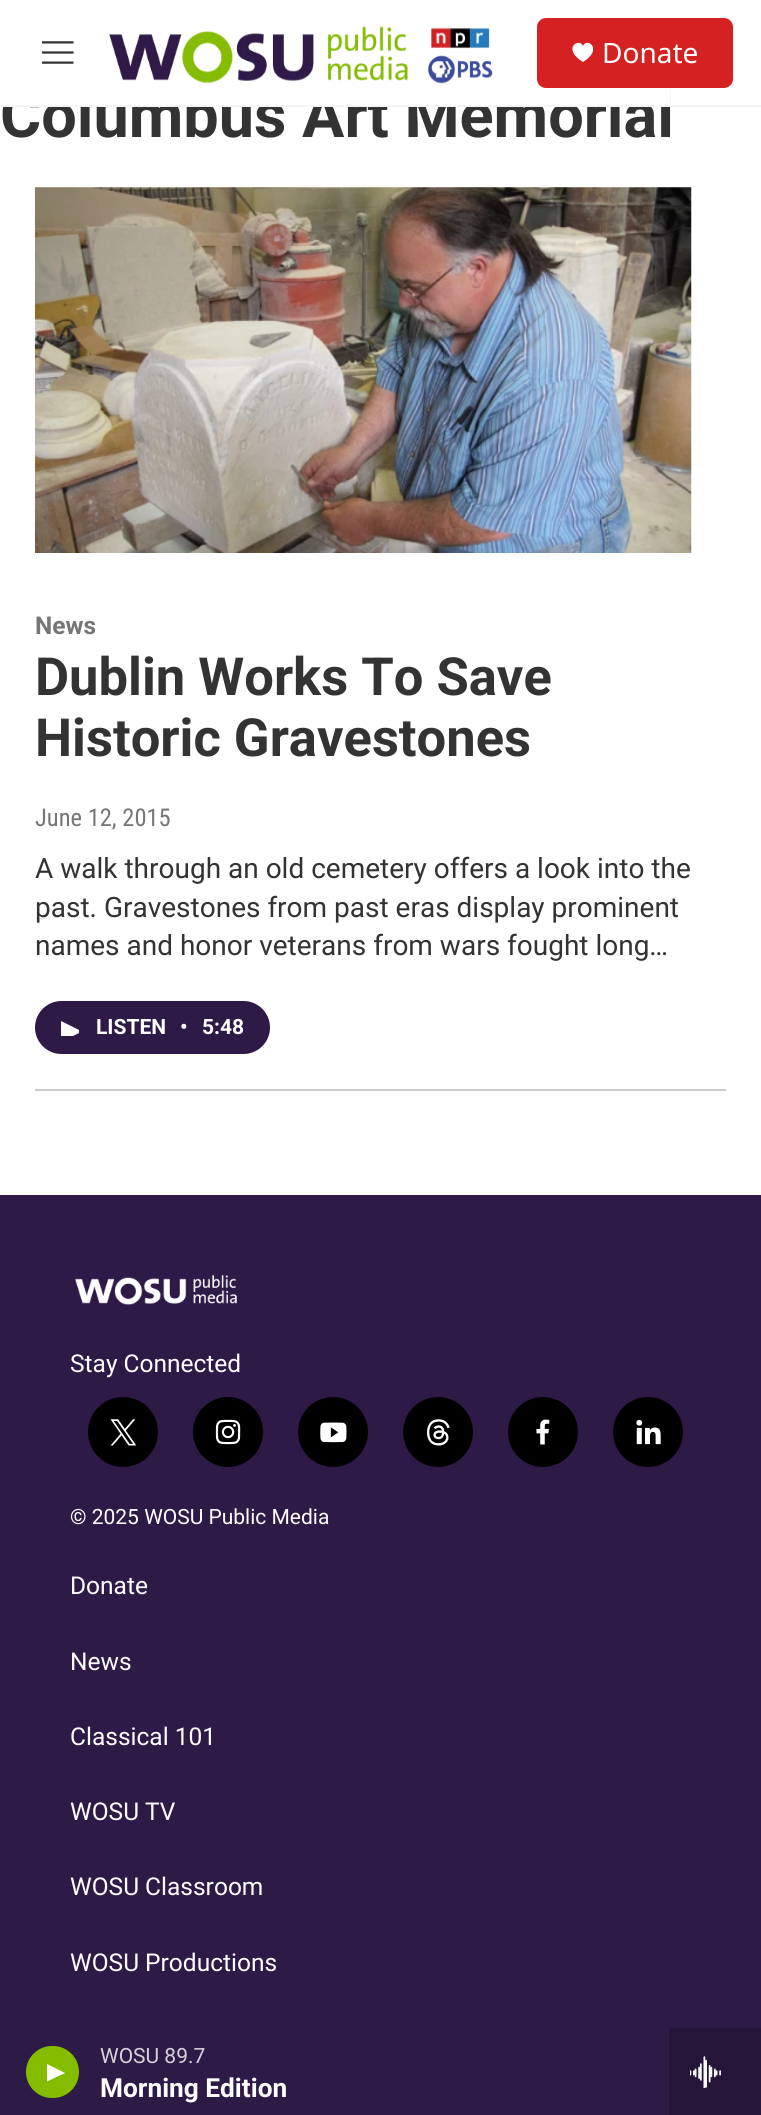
import math
import cairocffi as cairo

surface = cairo.ImageSurface(cairo.FORMAT_RGB24, 761, 2115)
ctx = cairo.Context(surface)
options = cairo.FontOptions()
options.set_hint_metrics(cairo.HINT_METRICS_OFF)
options.set_hint_style(cairo.HINT_STYLE_NONE)
ctx.set_font_options(options)
ctx.set_miter_limit(4)


def rgb(r, g, b):
    ctx.set_source_rgb(r / 255, g / 255, b / 255)


def face(family, size, italic, bold):
    ctx.select_font_face(family, cairo.FONT_SLANT_ITALIC if italic else cairo.FONT_SLANT_NORMAL, cairo.FONT_WEIGHT_BOLD if bold else cairo.FONT_WEIGHT_NORMAL)
    ctx.set_font_size(size)


def label(x, y, s):
    ctx.move_to(x, y)
    ctx.show_text(s)


def rect(x, y, w, h):
    ctx.rectangle(x, y, w, h)
    ctx.fill()


def rrect(x, y, w, h, r):
    ctx.new_sub_path()
    for i, (u, v) in enumerate([(x + w - r, y + h - r), (x + r, y + h - r), (x + r, y + r), (x + w - r, y + r)]):
        ctx.arc(u, v, r, i * math.pi / 2, (i + 1) * math.pi / 2)
    ctx.close_path()


def image(path, x, y, w, h):
    ctx.save()
    ctx.set_source_surface(cairo.ImageSurface.create_from_png(path), x, y)
    ctx.rectangle(x, y, w, h)
    ctx.fill()
    ctx.restore()


rgb(255, 255, 255)
ctx.paint()
face('Roboto', 63, 0, 1)
rgb(51, 51, 51)
label(0, 137, 'Columbus Art Memorial')
rgb(255, 255, 255)
rect(3, 89, 667, 16)
rgb(245, 245, 245)
rect(0, 105, 761, 2)
image('image0.png', 42, 41, 32, 23)
image('image1.png', 109, 26, 384, 58)
rgb(213, 33, 34)
rrect(537, 18, 196, 70, 9)
ctx.fill()
ctx.save()
ctx.rectangle(572, 42, 21, 21)
ctx.clip()
rgb(255, 255, 255)
ctx.new_path()
ctx.move_to(583, 46)
ctx.curve_to(579.5, 37, 561, 48.5, 583, 62)
ctx.curve_to(604.5, 48.5, 586, 37, 583, 46)
ctx.close_path()
ctx.fill()
ctx.restore()
face('Noto Sans', 28, 0, 0)
rgb(255, 255, 255)
label(602, 63, 'Donate')
rgb(46, 26, 71)
rect(0, 2028, 669, 87)
rgb(132, 189, 0)
rrect(26, 2046, 53, 52, 26)
ctx.fill()
rgb(255, 255, 255)
ctx.new_path()
ctx.move_to(47, 2064)
ctx.line_to(65, 2073)
ctx.line_to(47, 2081.5)
ctx.close_path()
ctx.fill()
face('Roboto', 21, 0, 0)
rgb(213, 209, 218)
label(100, 2063, 'WOSU 89.7')
face('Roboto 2', 26.25, 0, 1)
rgb(255, 255, 255)
label(100, 2097, 'Morning Edition')
rgb(37, 21, 57)
rect(669, 2028, 92, 87)
image('image2.png', 690, 2056, 31, 32)
rgb(204, 204, 204)
rect(35, 1089, 691, 2)
image('image3.png', 35, 187, 657, 366)
face('Roboto', 24.5, 0, 1)
rgb(118, 118, 118)
label(35, 634, 'News')
face('Roboto', 52.5, 0, 1)
rgb(51, 51, 51)
label(35, 695, 'Dublin Works To Save')
label(35, 756, 'Historic Gravestones')
face('Roboto Condensed', 24.5, 0, 0)
rgb(118, 118, 118)
label(35, 826, 'June 12, 2015')
face('Roboto', 28, 0, 0)
rgb(51, 51, 51)
label(35, 878, 'A walk through an old cemetery offers a look into the')
label(35, 917, 'past. Gravestones from past eras display prominent')
label(35, 955, 'names and honor veterans from wars fought long…')
rgb(46, 26, 71)
rrect(35, 1001, 235, 53, 26.5)
ctx.fill()
ctx.save()
ctx.rectangle(61, 1019, 18, 17)
ctx.clip()
rgb(255, 255, 255)
ctx.new_path()
ctx.move_to(61, 1021)
ctx.line_to(82, 1031.5)
ctx.line_to(61, 1042)
ctx.close_path()
ctx.fill()
ctx.restore()
face('Roboto 2', 21, 0, 1)
rgb(255, 255, 255)
label(96, 1034, 'LISTEN')
label(180, 1034, '•')
label(202, 1034, '5:48')
rgb(46, 26, 71)
rect(0, 1195, 761, 833)
image('image4.png', 74, 1274, 163, 31)
face('Roboto', 24.5, 0, 0)
rgb(255, 255, 255)
label(70, 1372, 'Stay Connected')
rgb(0, 0, 0)
ctx.new_path()
ctx.arc(123, 1432, 35, 0, 2 * math.pi)
ctx.fill()
image('image5.png', 110, 1419, 27, 27)
ctx.arc(228, 1432, 35, 0, 2 * math.pi)
ctx.fill()
image('image6.png', 215, 1419, 26, 26)
ctx.arc(333, 1432, 35, 0, 2 * math.pi)
ctx.fill()
image('image7.png', 320, 1422, 27, 21)
ctx.arc(438, 1432, 35, 0, 2 * math.pi)
ctx.fill()
image('image8.png', 427, 1419, 23, 27)
ctx.arc(543, 1432, 35, 0, 2 * math.pi)
ctx.fill()
image('image9.png', 536, 1419, 14, 26)
ctx.arc(648, 1432, 35, 0, 2 * math.pi)
ctx.fill()
image('image10.png', 636, 1419, 25, 26)
face('Roboto', 21, 0, 0)
rgb(255, 255, 255)
label(70, 1524, '© 2025 WOSU Public Media')
face('Roboto', 24.5, 0, 0)
label(70, 1594, 'Donate')
label(70, 1670, 'News')
label(70, 1745, 'Classical 101')
label(70, 1820, 'WOSU TV')
label(70, 1895, 'WOSU Classroom')
label(70, 1971, 'WOSU Productions')
surface.write_to_png('render.png')
